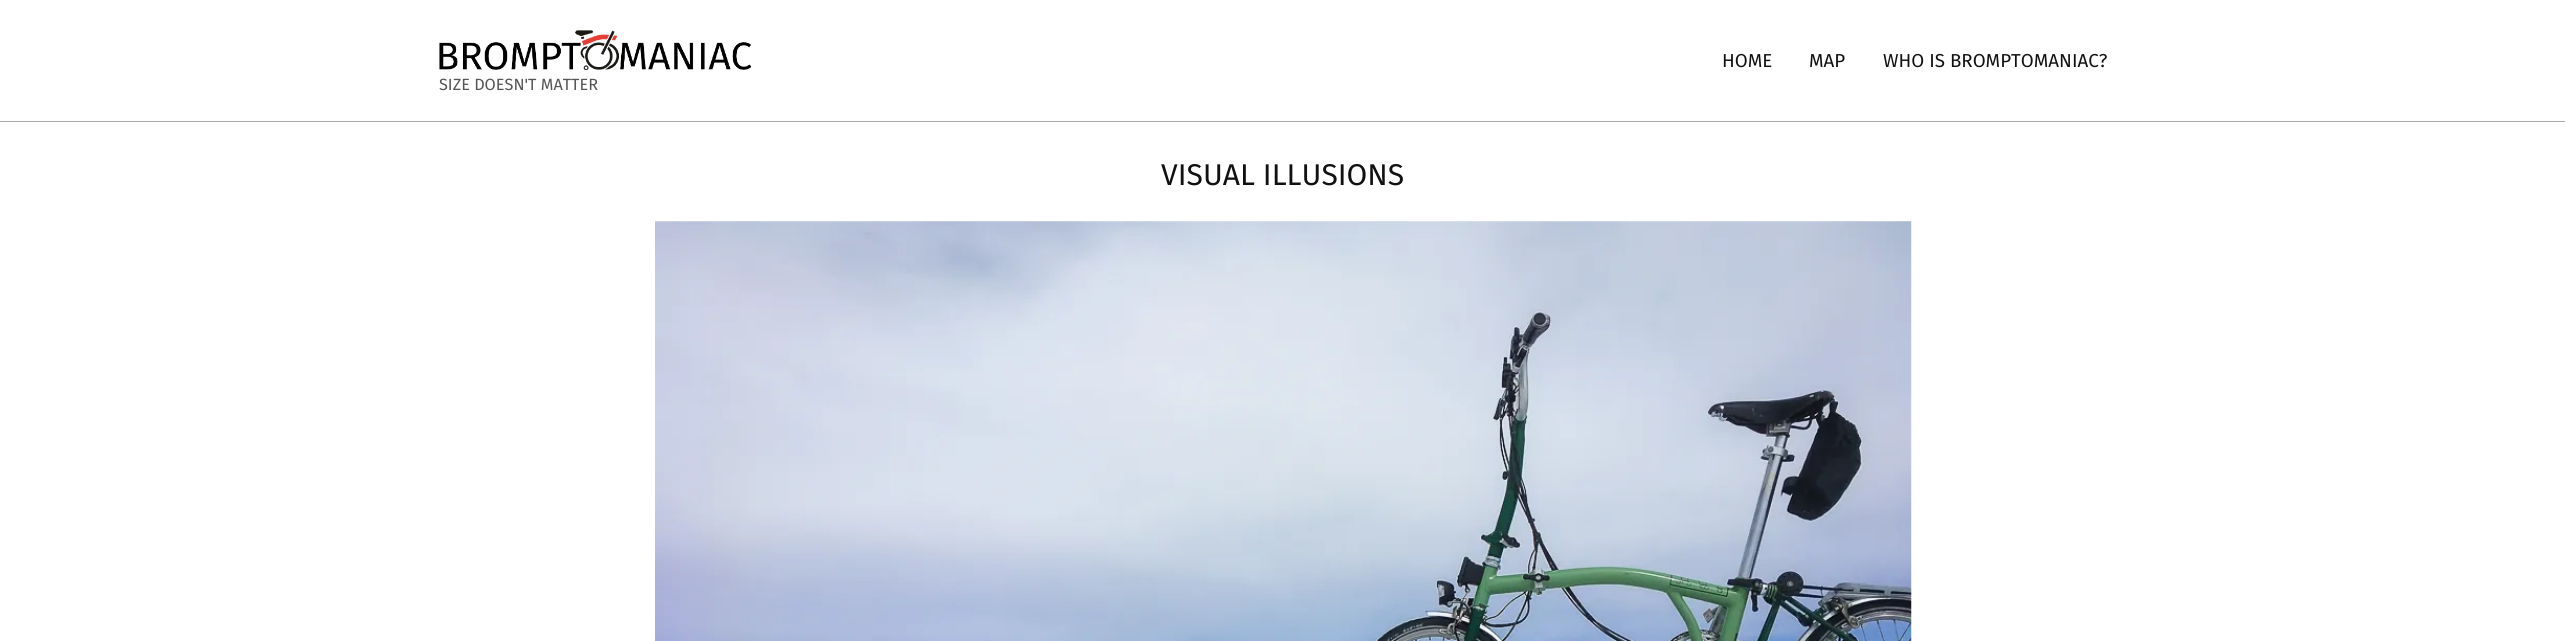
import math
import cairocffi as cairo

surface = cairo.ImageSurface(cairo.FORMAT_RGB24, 2565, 641)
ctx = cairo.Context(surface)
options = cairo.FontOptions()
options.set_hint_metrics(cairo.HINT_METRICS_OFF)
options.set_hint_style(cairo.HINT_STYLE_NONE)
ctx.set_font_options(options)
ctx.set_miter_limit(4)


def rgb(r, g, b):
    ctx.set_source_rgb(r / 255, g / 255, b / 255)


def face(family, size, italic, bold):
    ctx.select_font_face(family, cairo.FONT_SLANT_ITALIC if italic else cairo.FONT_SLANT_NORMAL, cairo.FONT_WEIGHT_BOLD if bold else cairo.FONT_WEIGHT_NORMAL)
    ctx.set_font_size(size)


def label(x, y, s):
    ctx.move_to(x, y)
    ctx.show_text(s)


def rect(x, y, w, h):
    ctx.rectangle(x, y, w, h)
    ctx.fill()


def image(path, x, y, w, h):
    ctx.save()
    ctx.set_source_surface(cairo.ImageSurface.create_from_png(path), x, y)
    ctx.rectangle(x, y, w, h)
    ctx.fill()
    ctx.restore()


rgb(255, 255, 255)
ctx.paint()
rgb(170, 170, 170)
rect(0, 121, 2565, 1)
face('Fira Sans', 18.75, 0, 0)
rgb(17, 17, 17)
label(1722, 67, 'HOME')
label(1809, 67, 'MAP')
label(1883, 67, 'WHO IS BROMPTOMANIAC?')
image('image0.png', 439, 30, 312, 40)
face('Fira Sans', 16.25, 0, 0)
rgb(85, 85, 85)
label(439, 90, 'SIZE DOESN\'T MATTER')
face('Fira Sans', 30, 0, 0)
rgb(17, 17, 17)
label(1161, 185, 'VISUAL ILLUSIONS')
image('image1.png', 655, 221, 1257, 420)
surface.write_to_png('render.png')
